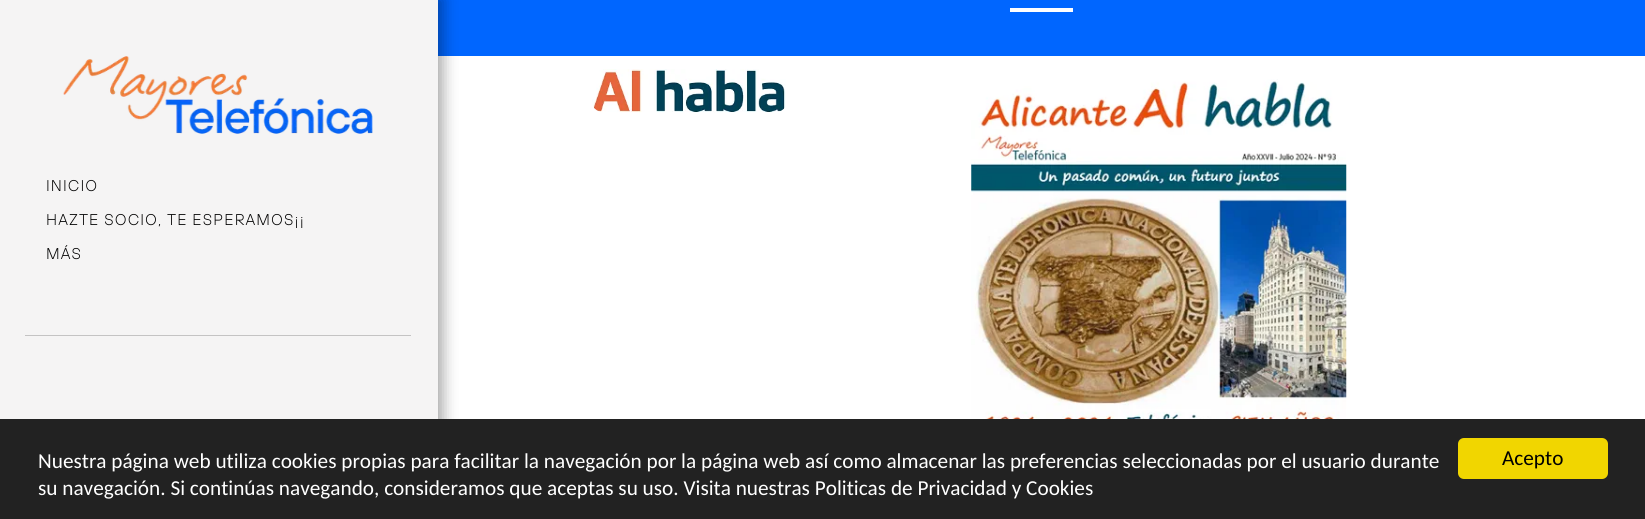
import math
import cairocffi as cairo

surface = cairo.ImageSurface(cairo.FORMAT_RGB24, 1645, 519)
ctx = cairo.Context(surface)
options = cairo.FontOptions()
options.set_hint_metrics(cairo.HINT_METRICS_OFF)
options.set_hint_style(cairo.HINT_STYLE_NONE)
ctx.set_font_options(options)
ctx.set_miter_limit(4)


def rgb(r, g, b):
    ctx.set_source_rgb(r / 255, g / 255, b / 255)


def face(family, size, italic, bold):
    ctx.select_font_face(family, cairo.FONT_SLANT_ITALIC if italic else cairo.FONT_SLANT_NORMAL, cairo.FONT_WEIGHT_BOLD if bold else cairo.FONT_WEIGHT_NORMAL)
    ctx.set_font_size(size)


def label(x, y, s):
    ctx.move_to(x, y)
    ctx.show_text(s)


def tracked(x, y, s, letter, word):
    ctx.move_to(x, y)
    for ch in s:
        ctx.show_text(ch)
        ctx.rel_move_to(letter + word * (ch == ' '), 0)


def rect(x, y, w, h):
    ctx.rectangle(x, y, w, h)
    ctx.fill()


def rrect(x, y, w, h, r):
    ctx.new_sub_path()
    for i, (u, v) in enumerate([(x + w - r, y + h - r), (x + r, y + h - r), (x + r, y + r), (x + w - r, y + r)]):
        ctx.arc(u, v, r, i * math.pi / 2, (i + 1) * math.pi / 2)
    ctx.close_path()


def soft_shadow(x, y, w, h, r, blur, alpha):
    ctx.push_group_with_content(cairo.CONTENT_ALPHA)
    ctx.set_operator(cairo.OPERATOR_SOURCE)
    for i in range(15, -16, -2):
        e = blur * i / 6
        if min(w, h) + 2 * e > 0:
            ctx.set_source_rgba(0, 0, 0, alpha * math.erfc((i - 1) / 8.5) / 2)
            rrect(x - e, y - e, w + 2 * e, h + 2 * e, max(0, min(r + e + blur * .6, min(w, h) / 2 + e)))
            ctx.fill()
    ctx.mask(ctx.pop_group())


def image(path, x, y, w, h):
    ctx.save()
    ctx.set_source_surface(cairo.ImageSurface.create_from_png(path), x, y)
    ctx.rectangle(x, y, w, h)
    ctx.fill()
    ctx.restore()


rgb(255, 255, 255)
ctx.paint()
rgb(0, 102, 255)
rect(438, 0, 1207, 56)
rgb(0, 0, 0)
soft_shadow(0, -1, 443, 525, 0, 7.5, 0.35)
rgb(245, 244, 244)
rect(0, 0, 438, 419)
image('image0.png', 63, 56, 310, 78)
face('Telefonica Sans', 15, 0, 1)
rgb(0, 0, 0)
tracked(46, 191, 'INICIO', 1.5, 0)
tracked(46, 225, 'HAZTE SOCIO, TE ESPERAMOS¡¡', 1.5, 0)
tracked(46, 259, 'MÁS', 1.5, 0)
rgb(196, 195, 195)
rect(25, 335, 386, 1)
rgb(255, 255, 255)
rect(1010, 8, 63, 4)
image('image1.png', 592, 69, 194, 44)
image('image2.png', 971, 79, 376, 340)
rgb(34, 34, 34)
rect(0, 419, 1645, 100)
face('Carlito', 21.25, 0, 0)
rgb(255, 255, 255)
label(38, 468, 'Nuestra página web utiliza cookies propias para facilitar la navegación por la página web así como almacenar las preferencias seleccionadas por el usuario durante')
label(38, 495, 'su navegación. Si continúas navegando, consideramos que aceptas su uso. Visita nuestras Politicas de Privacidad y Cookies')
rgb(241, 214, 0)
rrect(1458, 438, 150, 41, 6)
ctx.fill()
rgb(0, 0, 0)
label(1502, 465, 'Acepto')
surface.write_to_png('render.png')
